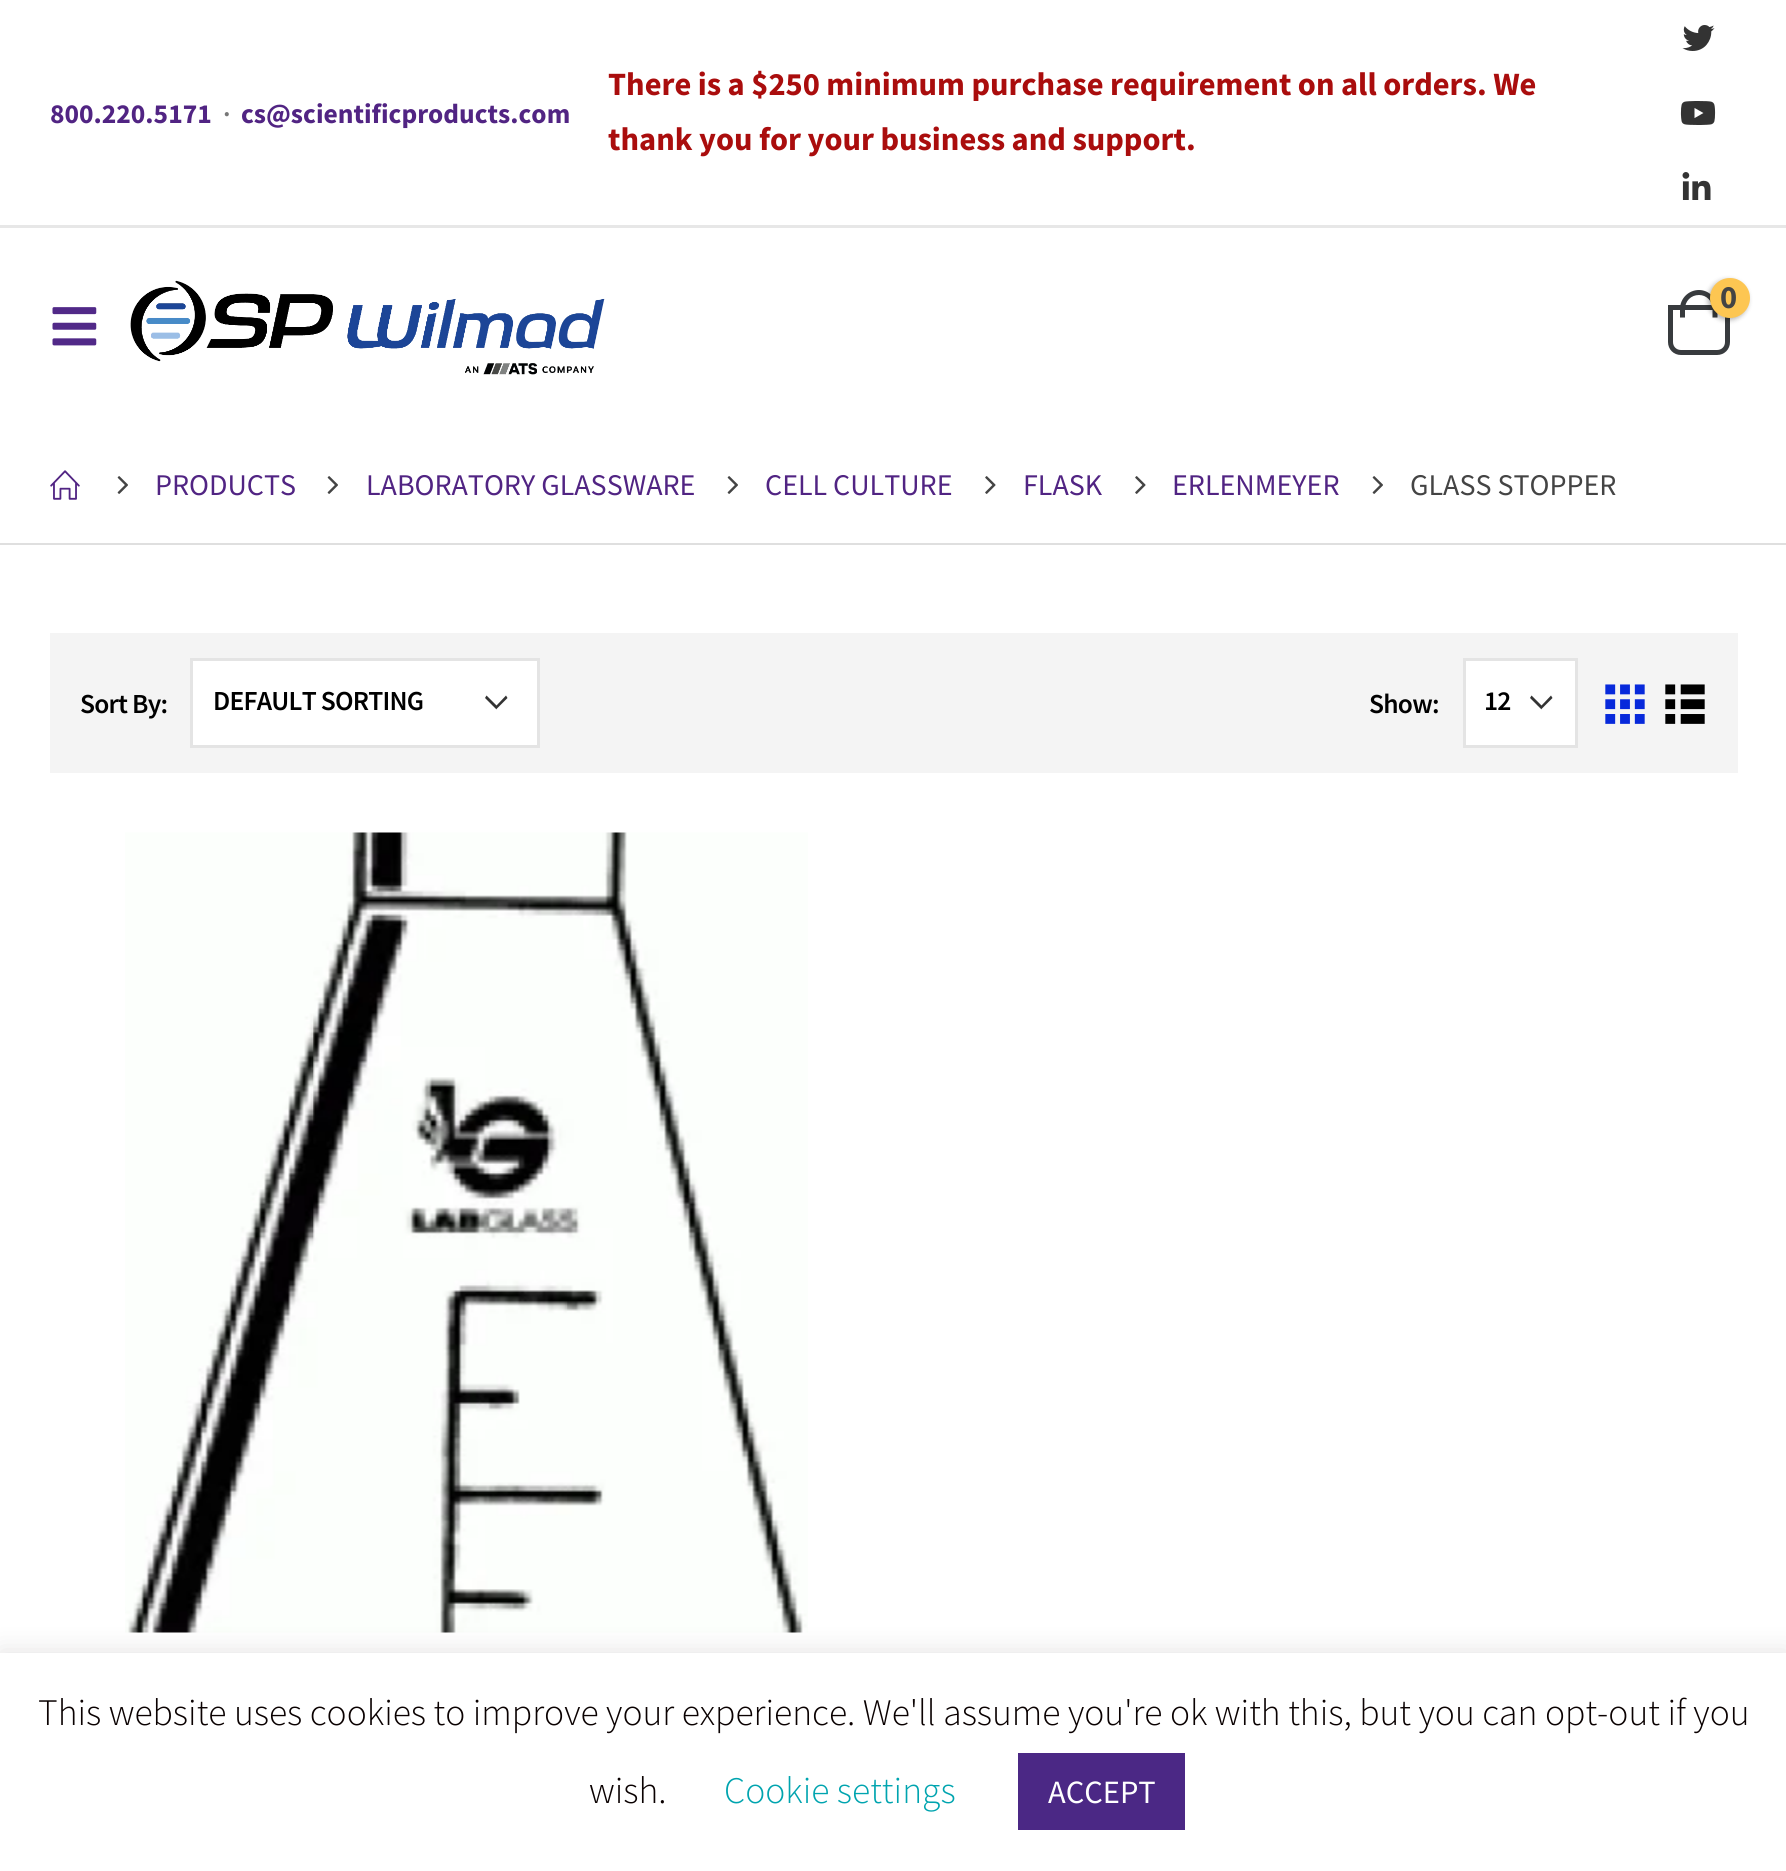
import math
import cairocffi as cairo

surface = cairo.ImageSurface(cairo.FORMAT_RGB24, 1786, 1871)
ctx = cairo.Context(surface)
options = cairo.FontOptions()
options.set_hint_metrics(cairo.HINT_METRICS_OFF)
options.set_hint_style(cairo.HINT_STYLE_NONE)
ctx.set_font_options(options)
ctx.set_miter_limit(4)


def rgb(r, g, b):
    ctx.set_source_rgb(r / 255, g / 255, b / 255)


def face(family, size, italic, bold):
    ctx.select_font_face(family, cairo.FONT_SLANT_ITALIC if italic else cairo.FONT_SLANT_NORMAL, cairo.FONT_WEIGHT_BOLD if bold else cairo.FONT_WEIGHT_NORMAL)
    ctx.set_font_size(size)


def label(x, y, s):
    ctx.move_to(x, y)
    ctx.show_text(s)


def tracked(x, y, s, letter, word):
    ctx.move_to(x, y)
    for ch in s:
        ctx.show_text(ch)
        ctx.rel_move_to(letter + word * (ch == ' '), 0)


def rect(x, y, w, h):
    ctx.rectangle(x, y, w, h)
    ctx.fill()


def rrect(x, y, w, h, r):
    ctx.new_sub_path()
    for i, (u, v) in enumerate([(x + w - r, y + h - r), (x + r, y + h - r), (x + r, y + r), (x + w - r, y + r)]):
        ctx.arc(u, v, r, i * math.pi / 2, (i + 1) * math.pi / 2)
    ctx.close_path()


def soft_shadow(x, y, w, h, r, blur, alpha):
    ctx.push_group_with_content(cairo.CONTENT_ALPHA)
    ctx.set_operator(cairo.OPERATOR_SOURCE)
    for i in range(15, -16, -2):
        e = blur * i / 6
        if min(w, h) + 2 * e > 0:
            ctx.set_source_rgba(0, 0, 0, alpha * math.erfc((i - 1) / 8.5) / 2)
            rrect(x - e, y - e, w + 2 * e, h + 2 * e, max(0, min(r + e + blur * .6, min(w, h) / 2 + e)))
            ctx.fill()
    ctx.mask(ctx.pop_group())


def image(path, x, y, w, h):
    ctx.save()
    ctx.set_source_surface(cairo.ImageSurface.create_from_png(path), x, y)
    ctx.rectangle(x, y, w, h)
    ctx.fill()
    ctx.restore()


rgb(255, 255, 255)
ctx.paint()
rgb(231, 231, 231)
rect(0, 225, 1786, 3)
face('Source Sans Pro', 27.5, 0, 1)
rgb(81, 36, 131)
label(50, 123, '800.220.5171')
face('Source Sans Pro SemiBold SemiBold', 27.5, 0, 0)
rgb(119, 119, 119)
label(223, 123, '·')
face('Source Sans Pro', 27.5, 0, 1)
rgb(81, 36, 131)
label(241, 123, 'cs@scientificproducts.com')
face('Source Sans Pro', 32.5, 0, 1)
rgb(170, 13, 13)
label(608, 95, 'There is a $250 minimum purchase requirement on all orders. We')
label(608, 150, 'thank you for your business and support.')
image('image0.png', 1682, 25, 33, 26)
image('image1.png', 1680, 101, 36, 24)
image('image2.png', 1682, 172, 29, 28)
image('image3.png', 52, 307, 45, 39)
image('image4.png', 130, 280, 475, 95)
ctx.new_path()
ctx.move_to(1670.5, 307.5)
ctx.line_to(1727.5, 307.5)
ctx.line_to(1727.5, 342)
ctx.curve_to(1727.5, 348, 1723, 352.5, 1717, 352.5)
ctx.line_to(1681, 352.5)
ctx.curve_to(1675, 352.5, 1670.5, 348, 1670.5, 342)
ctx.close_path()
rgb(56, 59, 62)
ctx.set_line_width(5)
ctx.stroke()
ctx.set_fill_rule(cairo.FILL_RULE_EVEN_ODD)
ctx.new_path()
ctx.move_to(1699, 290)
ctx.curve_to(1709, 290, 1717.5, 298.5, 1717.5, 309)
ctx.line_to(1717.5, 317.5)
ctx.line_to(1680, 317.5)
ctx.line_to(1680, 309)
ctx.curve_to(1680, 298.5, 1688.5, 290, 1699, 290)
ctx.close_path()
ctx.move_to(1699, 295)
ctx.curve_to(1706.5, 295, 1712.5, 301, 1712.5, 309)
ctx.line_to(1712.5, 317.5)
ctx.line_to(1685, 317.5)
ctx.line_to(1685, 309)
ctx.curve_to(1685, 301, 1691, 295, 1699, 295)
ctx.close_path()
ctx.fill()
rgb(0, 0, 0)
soft_shadow(1708, 280, 40, 40, 20, 2.5, 0.3)
rgb(253, 198, 82)
ctx.arc(1730, 298, 20, 0, 2 * math.pi)
ctx.fill()
rgb(68, 68, 68)
label(1720, 308, '0')
rgb(223, 223, 223)
rect(0, 543, 1786, 2)
image('image5.png', 50, 470, 30, 30)
image('image6.png', 117, 476, 11, 18)
face('Source Sans Pro', 30, 0, 0)
rgb(81, 36, 131)
label(155, 495, 'PRODUCTS')
image('image6.png', 327, 476, 11, 18)
label(366, 495, 'LABORATORY GLASSWARE')
image('image6.png', 727, 476, 11, 18)
label(765, 495, 'CELL CULTURE')
image('image7.png', 985, 476, 11, 18)
label(1023, 495, 'FLASK')
image('image7.png', 1135, 476, 11, 18)
label(1172, 495, 'ERLENMEYER')
image('image6.png', 1372, 476, 11, 18)
rgb(68, 68, 68)
label(1410, 495, 'GLASS STOPPER')
rgb(244, 244, 244)
rect(50, 633, 1688, 140)
face('Source Sans Pro SemiBold SemiBold', 27.5, 0, 0)
rgb(0, 0, 0)
tracked(80, 713, 'Sort By:', -0.75, 0)
rgb(255, 255, 255)
rect(193, 661, 344, 84)
rgb(51, 51, 51)
ctx.new_path()
ctx.move_to(496.5, 709)
ctx.line_to(507.5, 698)
ctx.line_to(506, 695.5)
ctx.line_to(496.5, 705.5)
ctx.line_to(486.5, 695.5)
ctx.line_to(485, 698)
ctx.line_to(496.5, 709.5)
ctx.close_path()
ctx.fill()
ctx.rectangle(191.5, 659.5, 347, 87)
rgb(228, 228, 228)
ctx.set_line_width(3)
ctx.stroke()
rgb(0, 0, 0)
tracked(213, 710, 'DEFAULT SORTING', -0.75, 0)
tracked(1369, 713, 'Show:', -0.75, 0)
rgb(255, 255, 255)
rect(1466, 661, 109, 84)
rgb(51, 51, 51)
ctx.new_path()
ctx.move_to(1541.5, 709)
ctx.line_to(1552.5, 698)
ctx.line_to(1551, 695.5)
ctx.line_to(1541.5, 705.5)
ctx.line_to(1531.5, 695.5)
ctx.line_to(1530, 698)
ctx.line_to(1541.5, 709.5)
ctx.close_path()
ctx.fill()
ctx.rectangle(1464.5, 659.5, 112, 87)
rgb(228, 228, 228)
ctx.stroke()
rgb(0, 0, 0)
tracked(1484, 710, '12', -0.75, 0)
image('image8.png', 1605, 684, 40, 40)
image('image9.png', 1665, 684, 40, 40)
image('image10.png', 125, 832, 683, 801)
rgb(172, 171, 171)
soft_shadow(0, 1650, 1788, 220, 0, 12.5, 0.3)
rgb(255, 255, 255)
rect(0, 1653, 1786, 218)
face('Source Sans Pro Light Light', 37.5, 0, 0)
rgb(10, 1, 1)
label(38, 1725, 'This website uses cookies to improve your experience. We\'ll assume you\'re ok with this, but you can opt-out if you')
label(589, 1803, 'wish.')
rgb(0, 164, 175)
label(724, 1803, 'Cookie settings')
rgb(75, 40, 133)
rect(1018, 1753, 167, 77)
face('Source Sans Pro', 32.5, 0, 0)
rgb(255, 255, 255)
label(1048, 1803, 'ACCEPT')
surface.write_to_png('render.png')
